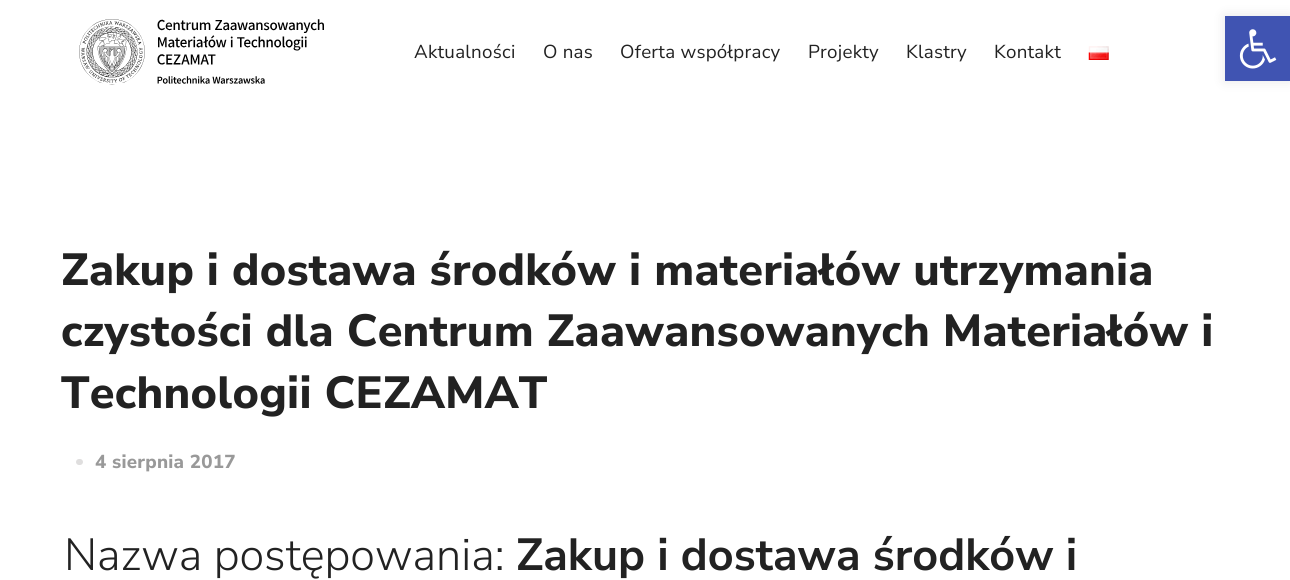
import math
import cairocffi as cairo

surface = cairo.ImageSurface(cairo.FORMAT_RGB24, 1290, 580)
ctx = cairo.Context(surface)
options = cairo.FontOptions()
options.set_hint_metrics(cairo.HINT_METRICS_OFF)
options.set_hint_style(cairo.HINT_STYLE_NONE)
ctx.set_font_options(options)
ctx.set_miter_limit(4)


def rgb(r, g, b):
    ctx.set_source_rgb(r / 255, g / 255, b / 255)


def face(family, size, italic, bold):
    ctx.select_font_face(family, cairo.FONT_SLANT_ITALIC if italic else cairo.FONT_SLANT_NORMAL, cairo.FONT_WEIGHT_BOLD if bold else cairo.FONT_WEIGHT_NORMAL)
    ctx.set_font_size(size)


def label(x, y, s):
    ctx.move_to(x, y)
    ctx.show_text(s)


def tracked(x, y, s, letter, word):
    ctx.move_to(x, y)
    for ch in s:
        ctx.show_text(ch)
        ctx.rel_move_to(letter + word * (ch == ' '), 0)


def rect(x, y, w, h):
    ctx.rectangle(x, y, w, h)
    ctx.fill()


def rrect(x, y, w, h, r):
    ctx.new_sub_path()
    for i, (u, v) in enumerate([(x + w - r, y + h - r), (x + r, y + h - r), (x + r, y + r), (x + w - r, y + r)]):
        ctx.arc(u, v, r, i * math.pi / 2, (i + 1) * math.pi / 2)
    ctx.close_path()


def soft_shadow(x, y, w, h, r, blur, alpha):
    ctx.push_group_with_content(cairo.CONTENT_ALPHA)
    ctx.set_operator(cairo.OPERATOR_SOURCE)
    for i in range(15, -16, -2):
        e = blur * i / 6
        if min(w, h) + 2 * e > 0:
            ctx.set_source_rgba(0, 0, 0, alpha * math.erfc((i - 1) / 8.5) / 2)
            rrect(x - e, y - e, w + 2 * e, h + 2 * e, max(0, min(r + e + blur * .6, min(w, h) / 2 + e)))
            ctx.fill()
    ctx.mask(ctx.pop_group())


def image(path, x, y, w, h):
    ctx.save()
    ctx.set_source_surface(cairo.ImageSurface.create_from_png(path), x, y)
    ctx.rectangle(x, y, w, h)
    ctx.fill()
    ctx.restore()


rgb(255, 255, 255)
ctx.paint()
image('image0.png', 79, 19, 245, 66)
face('Nunito Sans', 18.75, 0, 0)
rgb(34, 34, 34)
tracked(414, 58, 'Aktualności', 0.25, 0)
tracked(543, 58, 'O nas', 0.25, 0)
tracked(620, 58, 'Oferta współpracy', 0.25, 0)
tracked(808, 58, 'Projekty', 0.25, 0)
tracked(906, 58, 'Klastry', 0.25, 0)
tracked(994, 58, 'Kontakt', 0.25, 0)
image('image1.png', 1088, 46, 21, 14)
face('Nunito Sans ExtraBold', 45, 0, 0)
tracked(61, 285, 'Zakup i dostawa środków i materiałów utrzymania', 0.25, 0)
tracked(61, 346, 'czystości dla Centrum Zaawansowanych Materiałów i', 0.25, 0)
tracked(61, 408, 'Technologii CEZAMAT', 0.25, 0)
rgb(223, 222, 222)
rrect(76, 459, 7, 6, 3)
ctx.fill()
face('Nunito Sans ExtraBold', 18.75, 0, 0)
rgb(153, 153, 153)
tracked(95, 468, '4 sierpnia 2017', 0.25, 0)
face('Nunito Sans Light', 45, 0, 0)
rgb(34, 34, 34)
label(64, 570, 'Nazwa postępowania:')
face('Nunito Sans', 45, 0, 1)
label(516, 570, 'Zakup i dostawa środków i')
rgb(0, 0, 0)
soft_shadow(1225, 16, 65, 65, 0, 6, 0.1)
rgb(64, 84, 178)
rect(1225, 16, 65, 65)
image('image2.png', 1239, 29, 38, 40)
surface.write_to_png('render.png')
